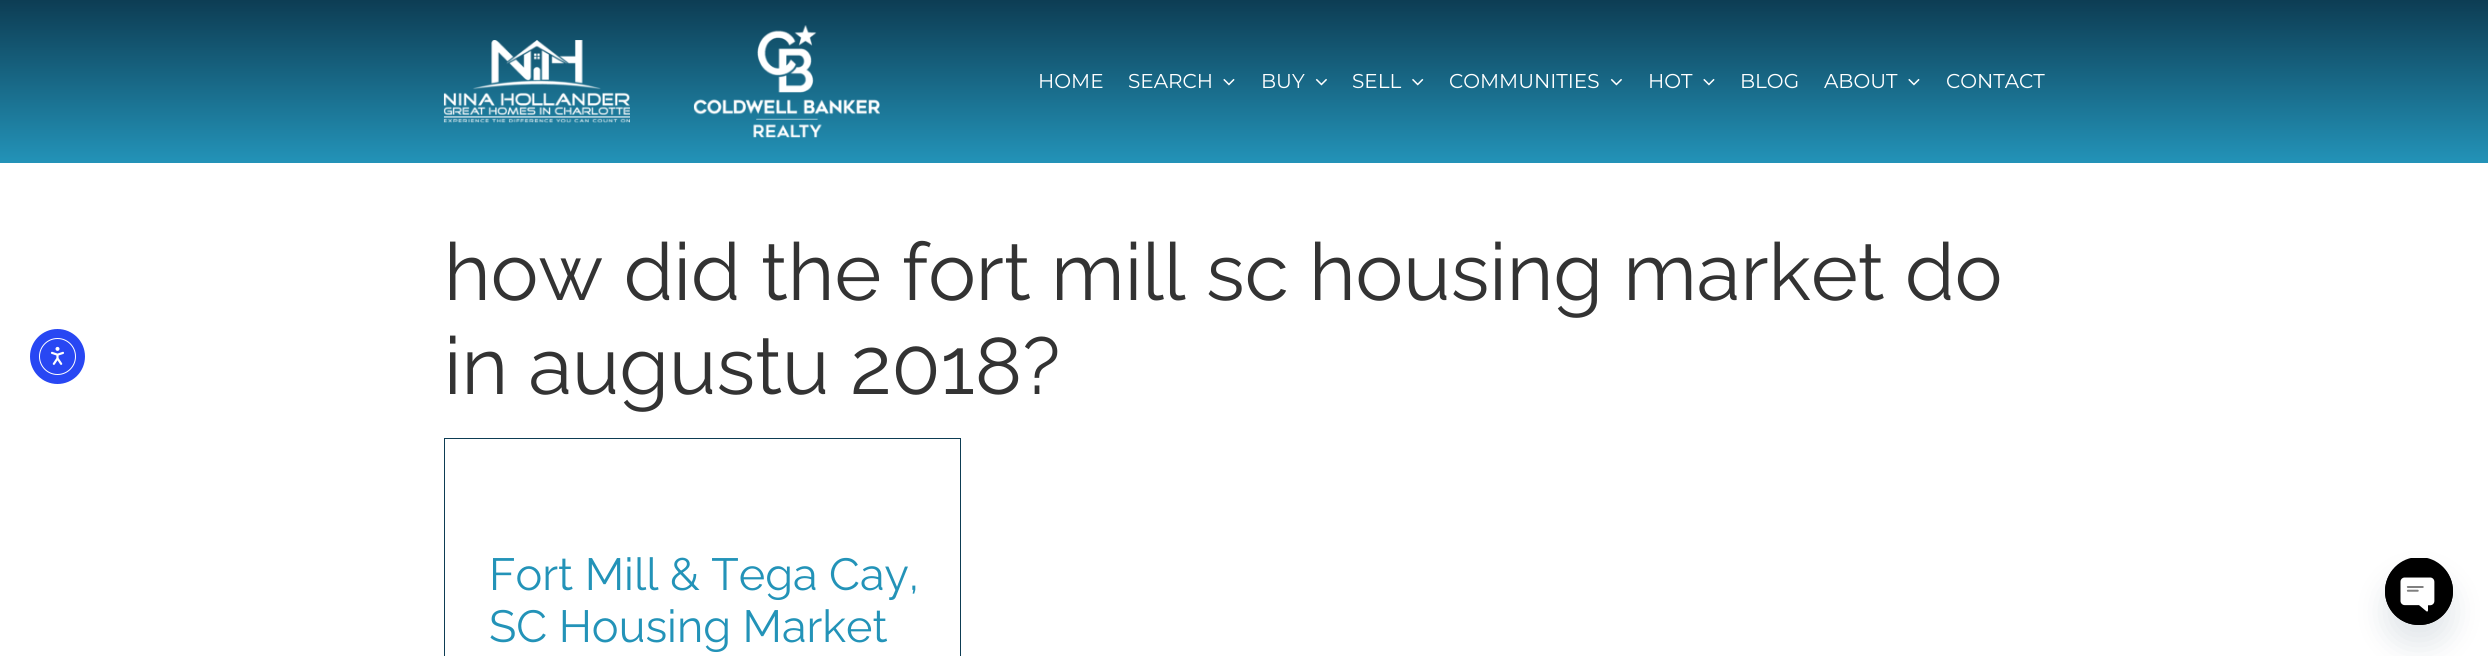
import math
import cairocffi as cairo

surface = cairo.ImageSurface(cairo.FORMAT_RGB24, 2488, 656)
ctx = cairo.Context(surface)
options = cairo.FontOptions()
options.set_hint_metrics(cairo.HINT_METRICS_OFF)
options.set_hint_style(cairo.HINT_STYLE_NONE)
ctx.set_font_options(options)
ctx.set_miter_limit(4)


def rgb(r, g, b):
    ctx.set_source_rgb(r / 255, g / 255, b / 255)


def face(family, size, italic, bold):
    ctx.select_font_face(family, cairo.FONT_SLANT_ITALIC if italic else cairo.FONT_SLANT_NORMAL, cairo.FONT_WEIGHT_BOLD if bold else cairo.FONT_WEIGHT_NORMAL)
    ctx.set_font_size(size)


def label(x, y, s):
    ctx.move_to(x, y)
    ctx.show_text(s)


def rect(x, y, w, h):
    ctx.rectangle(x, y, w, h)
    ctx.fill()


def rrect(x, y, w, h, r):
    ctx.new_sub_path()
    for i, (u, v) in enumerate([(x + w - r, y + h - r), (x + r, y + h - r), (x + r, y + r), (x + w - r, y + r)]):
        ctx.arc(u, v, r, i * math.pi / 2, (i + 1) * math.pi / 2)
    ctx.close_path()


def soft_shadow(x, y, w, h, r, blur, alpha):
    ctx.push_group_with_content(cairo.CONTENT_ALPHA)
    ctx.set_operator(cairo.OPERATOR_SOURCE)
    for i in range(15, -16, -2):
        e = blur * i / 6
        if min(w, h) + 2 * e > 0:
            ctx.set_source_rgba(0, 0, 0, alpha * math.erfc((i - 1) / 8.5) / 2)
            rrect(x - e, y - e, w + 2 * e, h + 2 * e, max(0, min(r + e + blur * .6, min(w, h) / 2 + e)))
            ctx.fill()
    ctx.mask(ctx.pop_group())


def image(path, x, y, w, h):
    ctx.save()
    ctx.set_source_surface(cairo.ImageSurface.create_from_png(path), x, y)
    ctx.rectangle(x, y, w, h)
    ctx.fill()
    ctx.restore()


rgb(255, 255, 255)
ctx.paint()
rgb(40, 71, 243)
ctx.arc(57.5, 356.5, 27.5, 0, 2 * math.pi)
ctx.fill()
ctx.arc(57.5, 356.5, 18, 0, 2 * math.pi)
rgb(255, 255, 255)
ctx.set_line_width(1)
ctx.stroke()
image('image0.png', 51, 346, 13, 19)
gradient = cairo.LinearGradient(1244, 0, 1244, 163)
gradient.add_color_stop_rgba(0, 0.051, 0.239, 0.329, 1)
gradient.add_color_stop_rgba(1, 0.137, 0.576, 0.722, 1)
ctx.set_source(gradient)
rect(0, 0, 2488, 163)
image('image1.png', 443, 40, 187, 83)
image('image2.png', 693, 25, 187, 113)
face('Montserrat', 20, 0, 0)
rgb(255, 255, 255)
label(1038, 88, 'HOME')
label(1128, 88, 'SEARCH')
image('image3.png', 1223, 78, 12, 8)
label(1261, 88, 'BUY')
image('image4.png', 1315, 78, 12, 8)
label(1352, 88, 'SELL')
image('image5.png', 1412, 78, 12, 8)
label(1449, 88, 'COMMUNITIES')
image('image4.png', 1610, 78, 12, 8)
label(1648, 88, 'HOT')
image('image3.png', 1703, 78, 12, 8)
label(1740, 88, 'BLOG')
label(1824, 88, 'ABOUT')
image('image3.png', 1908, 78, 12, 8)
label(1946, 88, 'CONTACT')
face('Raleway Thin', 80, 0, 0)
rgb(51, 51, 51)
label(444, 300, 'how did the fort mill sc housing market do')
label(444, 394, 'in augustu 2018?')
ctx.rectangle(444.5, 438.5, 516, 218)
rgb(13, 61, 84)
ctx.stroke()
face('Raleway Thin', 45, 0, 0)
rgb(35, 147, 184)
label(489, 590, 'Fort Mill & Tega Cay,')
label(489, 642, 'SC Housing Market')
rgb(73, 104, 126)
soft_shadow(2385, 578, 68, 67, 33.5, 15, 0.16)
rgb(0, 0, 0)
rrect(2385, 558, 68, 67, 33.5)
ctx.fill()
image('image6.png', 2385, 558, 68, 67)
surface.write_to_png('render.png')
